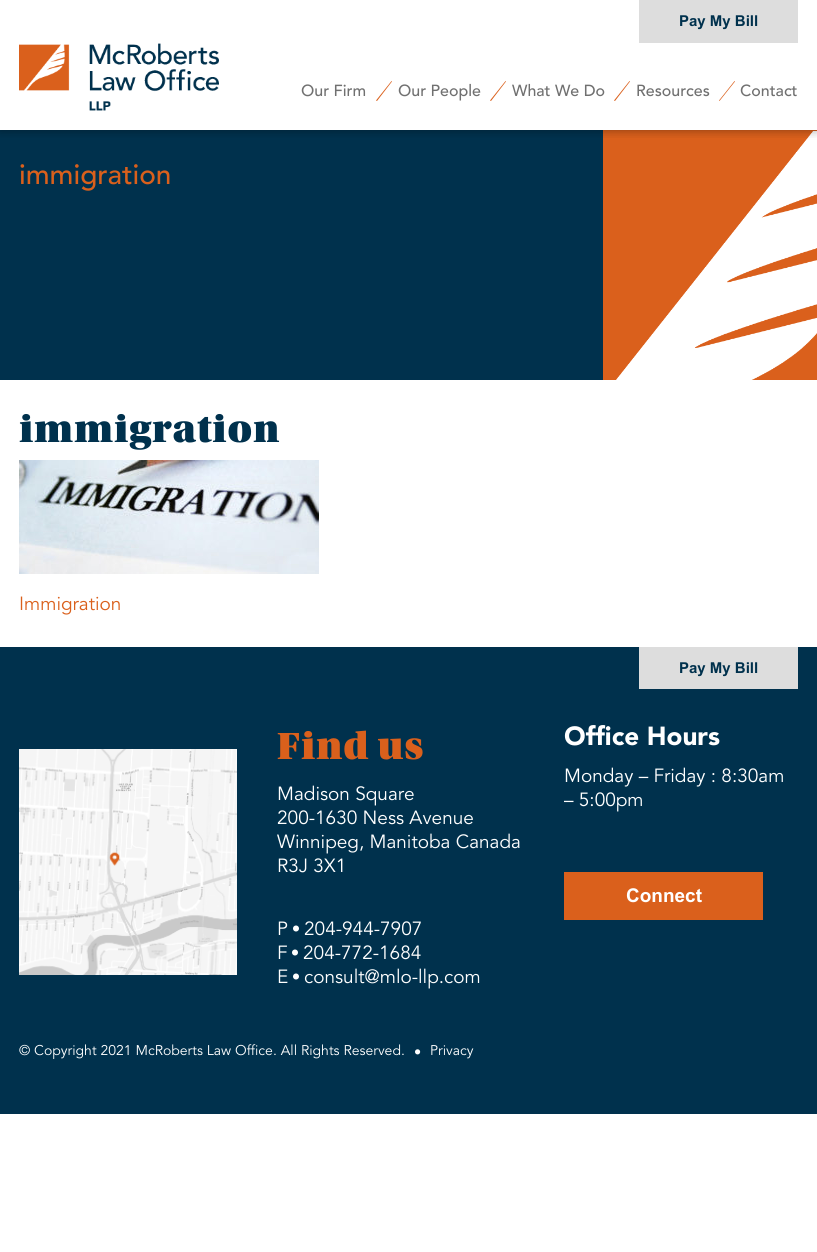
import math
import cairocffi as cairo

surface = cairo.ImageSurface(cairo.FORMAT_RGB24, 817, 1252)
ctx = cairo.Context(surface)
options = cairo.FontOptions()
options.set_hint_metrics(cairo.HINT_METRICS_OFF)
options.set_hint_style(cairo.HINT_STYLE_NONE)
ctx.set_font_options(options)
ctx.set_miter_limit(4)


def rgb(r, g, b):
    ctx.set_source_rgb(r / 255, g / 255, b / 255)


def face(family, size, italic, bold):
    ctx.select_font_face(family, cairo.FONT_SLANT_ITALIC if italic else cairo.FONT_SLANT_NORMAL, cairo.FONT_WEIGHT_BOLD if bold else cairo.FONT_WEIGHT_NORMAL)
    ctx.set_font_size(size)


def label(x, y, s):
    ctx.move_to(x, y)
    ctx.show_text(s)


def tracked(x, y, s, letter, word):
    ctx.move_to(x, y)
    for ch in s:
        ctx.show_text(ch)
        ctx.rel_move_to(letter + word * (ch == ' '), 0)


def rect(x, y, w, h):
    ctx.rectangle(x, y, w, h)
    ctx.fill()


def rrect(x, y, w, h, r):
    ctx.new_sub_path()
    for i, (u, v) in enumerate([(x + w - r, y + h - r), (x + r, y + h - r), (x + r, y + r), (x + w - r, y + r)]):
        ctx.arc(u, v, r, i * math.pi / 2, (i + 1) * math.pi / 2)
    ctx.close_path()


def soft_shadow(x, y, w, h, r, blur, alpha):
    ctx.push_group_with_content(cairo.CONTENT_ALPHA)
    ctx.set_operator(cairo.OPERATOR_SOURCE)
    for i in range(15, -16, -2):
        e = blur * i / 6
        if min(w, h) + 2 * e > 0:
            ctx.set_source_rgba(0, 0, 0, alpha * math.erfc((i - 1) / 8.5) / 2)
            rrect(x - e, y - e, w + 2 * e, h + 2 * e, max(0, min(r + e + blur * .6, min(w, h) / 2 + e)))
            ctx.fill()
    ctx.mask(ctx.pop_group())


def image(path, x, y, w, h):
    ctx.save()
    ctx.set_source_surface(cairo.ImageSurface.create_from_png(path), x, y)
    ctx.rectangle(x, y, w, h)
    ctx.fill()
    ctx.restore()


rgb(255, 255, 255)
ctx.paint()
rgb(0, 49, 77)
rect(0, 130, 603, 250)
rgb(218, 96, 28)
rect(603, 130, 214, 250)
image('image1.png', 616, 131, 201, 249)
ctx.save()
ctx.rectangle(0, 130, 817, 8)
ctx.clip()
rgb(0, 0, 0)
soft_shadow(0, 0, 817, 130, 0, 5, 0.4)
ctx.restore()
rgb(221, 221, 221)
rect(639, 0, 159, 43)
face('Arial', 15, 0, 1)
rgb(0, 49, 77)
label(679, 26, 'Pay My Bill')
image('image0.png', 19, 43, 200, 68)
face('Avenir Medium', 16, 0, 0)
rgb(112, 112, 112)
label(301, 96, 'Our Firm')
rgb(218, 96, 28)
ctx.new_path()
ctx.move_to(391.5, 81)
ctx.line_to(392, 81.5)
ctx.line_to(377, 101)
ctx.line_to(376, 100.5)
ctx.close_path()
ctx.fill()
rgb(112, 112, 112)
label(398, 96, 'Our People')
rgb(218, 96, 28)
ctx.new_path()
ctx.move_to(505.5, 81)
ctx.line_to(506, 81.5)
ctx.line_to(491, 101)
ctx.line_to(490, 100.5)
ctx.close_path()
ctx.fill()
rgb(112, 112, 112)
label(512, 96, 'What We Do')
rgb(218, 96, 28)
ctx.new_path()
ctx.move_to(629.5, 81)
ctx.line_to(630, 81.5)
ctx.line_to(615, 101)
ctx.line_to(614, 100.5)
ctx.close_path()
ctx.fill()
rgb(112, 112, 112)
label(636, 96, 'Resources')
rgb(218, 96, 28)
ctx.new_path()
ctx.move_to(734.5, 81)
ctx.line_to(735, 81.5)
ctx.line_to(719.5, 101)
ctx.line_to(719, 100.5)
ctx.close_path()
ctx.fill()
rgb(112, 112, 112)
label(740, 96, 'Contact')
face('Avenir Medium', 28, 0, 0)
rgb(218, 96, 28)
label(19, 184, 'immigration')
face('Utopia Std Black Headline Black', 40, 0, 0)
rgb(0, 49, 77)
tracked(19, 442, 'immigration', 1, 0)
image('image2.png', 19, 460, 300, 114)
face('Avenir', 19, 0, 0)
rgb(218, 96, 28)
label(19, 610, 'Immigration')
rgb(0, 49, 77)
rect(0, 647, 817, 467)
rgb(221, 221, 221)
rect(639, 647, 159, 42)
face('Arial', 15, 0, 1)
rgb(0, 49, 77)
label(679, 673, 'Pay My Bill')
image('image3.png', 19, 749, 218, 226)
face('Utopia Std Black Headline Black', 40, 0, 0)
rgb(218, 96, 28)
tracked(277, 759, 'Find us', 1, 0)
face('Avenir', 19, 0, 0)
rgb(255, 255, 255)
label(277, 800, 'Madison Square')
label(277, 824, '200-1630 Ness Avenue')
label(277, 848, 'Winnipeg, Manitoba Canada')
label(277, 872, 'R3J 3X1')
label(277, 935, 'P')
image('image4.png', 293, 925, 6, 7)
label(304, 935, '204-944-7907')
label(277, 959, 'F')
image('image4.png', 292, 949, 6, 7)
label(303, 959, '204-772-1684')
label(277, 983, 'E')
image('image4.png', 293, 973, 6, 7)
label(304, 983, 'consult@mlo-llp.com')
face('Avenir Black', 26, 0, 0)
label(564, 745, 'Office Hours')
face('Avenir', 19, 0, 0)
label(564, 782, 'Monday – Friday : 8:30am')
label(564, 806, '– 5:00pm')
rgb(218, 96, 28)
rect(564, 872, 199, 48)
face('Arial', 19, 0, 1)
rgb(255, 255, 255)
label(626, 902, 'Connect')
face('Avenir', 14, 0, 0)
label(19, 1055, '© Copyright 2021 McRoberts Law Office. All Rights Reserved.')
image('image5.png', 415, 1049, 6, 6)
label(430, 1055, 'Privacy')
surface.write_to_png('render.png')
